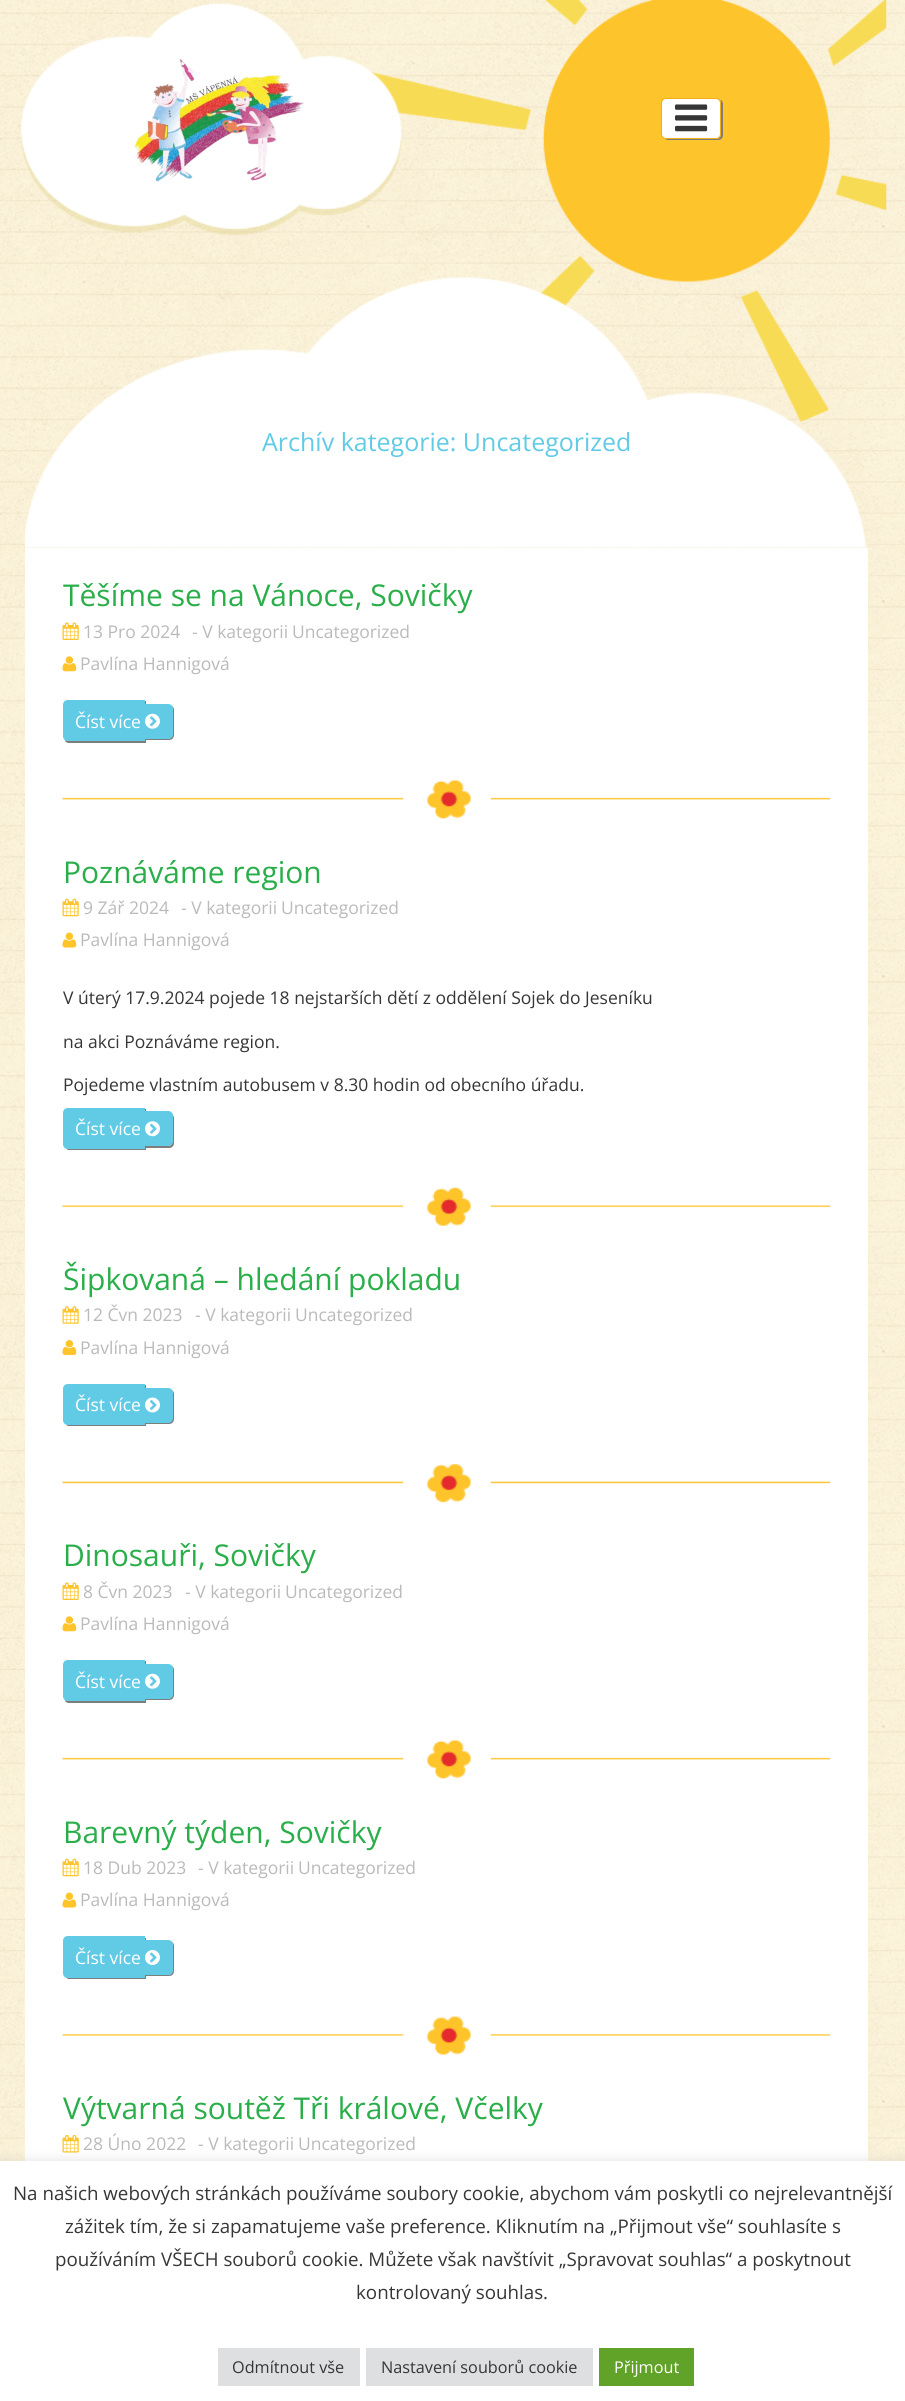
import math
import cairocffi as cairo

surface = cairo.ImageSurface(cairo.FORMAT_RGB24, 905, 2401)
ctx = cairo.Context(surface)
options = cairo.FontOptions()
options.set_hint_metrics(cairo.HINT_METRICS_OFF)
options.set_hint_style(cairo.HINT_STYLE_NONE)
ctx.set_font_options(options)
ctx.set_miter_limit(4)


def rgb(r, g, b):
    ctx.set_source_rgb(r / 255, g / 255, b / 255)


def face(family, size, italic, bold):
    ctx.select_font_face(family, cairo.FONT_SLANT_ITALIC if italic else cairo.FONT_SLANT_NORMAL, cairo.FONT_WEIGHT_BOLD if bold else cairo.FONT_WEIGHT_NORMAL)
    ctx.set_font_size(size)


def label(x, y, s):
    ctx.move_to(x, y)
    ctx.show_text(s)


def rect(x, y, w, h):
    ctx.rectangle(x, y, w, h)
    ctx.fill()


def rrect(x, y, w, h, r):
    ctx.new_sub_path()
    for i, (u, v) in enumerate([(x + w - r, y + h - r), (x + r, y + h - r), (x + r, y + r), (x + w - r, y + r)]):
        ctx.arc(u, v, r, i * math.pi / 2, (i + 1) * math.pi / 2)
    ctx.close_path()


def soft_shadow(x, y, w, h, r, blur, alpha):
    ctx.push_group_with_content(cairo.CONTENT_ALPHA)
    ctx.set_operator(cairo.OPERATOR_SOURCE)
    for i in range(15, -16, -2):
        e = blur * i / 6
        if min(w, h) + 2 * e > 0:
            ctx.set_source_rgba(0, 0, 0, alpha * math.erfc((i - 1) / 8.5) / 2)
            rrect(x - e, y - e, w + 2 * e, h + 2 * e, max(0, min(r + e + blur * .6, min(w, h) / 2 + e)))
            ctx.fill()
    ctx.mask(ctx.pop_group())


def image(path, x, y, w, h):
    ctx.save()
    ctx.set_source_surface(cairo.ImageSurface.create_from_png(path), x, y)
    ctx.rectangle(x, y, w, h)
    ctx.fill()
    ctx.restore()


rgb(255, 255, 255)
ctx.paint()
image('image0.png', 0, 0, 905, 2161)
image('image3.png', 370, 0, 517, 422)
image('image1.png', 21, 3, 381, 232)
image('image2.png', 134, 59, 170, 123)
rgb(125, 125, 125)
ctx.new_path()
ctx.move_to(664, 138)
ctx.curve_to(665, 139, 667, 140, 668, 140)
ctx.line_to(718, 140)
ctx.curve_to(721, 140, 723, 138, 723, 135)
ctx.line_to(723, 104)
ctx.curve_to(723, 102, 722, 100, 720, 100)
ctx.line_to(721, 102)
ctx.line_to(721, 134)
ctx.curve_to(721, 137, 719, 139, 716, 139)
ctx.line_to(666, 139)
ctx.close_path()
ctx.fill()
rgb(255, 255, 255)
rrect(661.5, 98.5, 59, 40, 4.5)
ctx.fill_preserve()
rgb(241, 173, 21)
ctx.set_line_width(1)
ctx.stroke()
image('image4.png', 675, 104, 33, 28)
image('image5.png', 25, 277, 842, 271)
face('Open Sans', 25, 0, 0)
rgb(97, 203, 230)
label(262, 451, 'Archív kategorie: Uncategorized')
rgb(255, 255, 255)
rect(25, 548, 843, 1613)
face('Open Sans', 30, 0, 0)
rgb(42, 174, 74)
label(63, 606, 'Těšíme se na Vánoce, Sovičky')
image('image6.png', 62, 622, 17, 18)
face('Open Sans', 17.5, 0, 0)
rgb(186, 186, 186)
label(83, 638, '13 Pro 2024')
label(192, 638, '- V kategorii')
label(292, 638, 'Uncategorized')
image('image7.png', 62, 656, 15, 16)
label(80, 670, 'Pavlína Hannigová')
rgb(125, 125, 125)
ctx.new_path()
ctx.move_to(65, 740)
ctx.curve_to(65, 742, 67, 743, 69, 743)
ctx.line_to(146, 743)
ctx.line_to(146, 701)
ctx.line_to(145, 701)
ctx.line_to(145, 741)
ctx.line_to(68, 741)
ctx.close_path()
ctx.fill()
rgb(97, 203, 230)
ctx.new_path()
ctx.move_to(68, 700)
ctx.line_to(145, 700)
ctx.line_to(145, 741)
ctx.line_to(68, 741)
ctx.curve_to(65, 741, 63, 739, 63, 736)
ctx.line_to(63, 705)
ctx.curve_to(63, 702, 65, 700, 68, 700)
ctx.close_path()
ctx.fill()
rgb(255, 255, 255)
label(75, 728, 'Číst více')
rgb(125, 125, 125)
ctx.new_path()
ctx.move_to(146, 739)
ctx.line_to(146, 740)
ctx.line_to(169, 740)
ctx.curve_to(172, 740, 174, 738, 174, 735)
ctx.line_to(174, 710)
ctx.curve_to(174, 708, 173, 706.5, 171.5, 705.5)
ctx.curve_to(172, 706.5, 172.5, 707.5, 172.5, 709)
ctx.line_to(172.5, 734)
ctx.curve_to(172.5, 736.5, 170.5, 739, 167.5, 739)
ctx.close_path()
ctx.fill()
rgb(97, 203, 230)
ctx.new_path()
ctx.move_to(145, 704)
ctx.line_to(168, 704)
ctx.curve_to(171, 704, 173, 706, 173, 709)
ctx.line_to(173, 734)
ctx.curve_to(173, 737, 171, 739, 168, 739)
ctx.line_to(145, 739)
ctx.close_path()
ctx.fill()
image('image8.png', 145, 713, 15, 16)
image('image9.png', 62, 780, 768, 39)
face('Open Sans', 30, 0, 0)
rgb(42, 174, 74)
label(63, 883, 'Poznáváme region')
image('image10.png', 62, 898, 17, 19)
face('Open Sans', 17.5, 0, 0)
rgb(186, 186, 186)
label(83, 914, '9 Zář 2024')
label(181, 914, '- V kategorii')
label(281, 914, 'Uncategorized')
image('image11.png', 62, 932, 15, 16)
label(80, 946, 'Pavlína Hannigová')
rgb(54, 54, 54)
label(63, 1004, 'V úterý 17.9.2024 pojede 18 nejstarších dětí z oddělení Sojek do Jeseníku')
label(63, 1048, 'na akci Poznáváme region.')
label(63, 1091, 'Pojedeme vlastním autobusem v 8.30 hodin od obecního úřadu.')
rgb(125, 125, 125)
ctx.new_path()
ctx.move_to(65, 1148)
ctx.line_to(68, 1150)
ctx.line_to(146, 1150)
ctx.line_to(146, 1109)
ctx.line_to(145, 1109)
ctx.line_to(145, 1149)
ctx.line_to(68, 1149)
ctx.close_path()
ctx.fill()
rgb(97, 203, 230)
ctx.new_path()
ctx.move_to(68, 1108)
ctx.line_to(145, 1108)
ctx.line_to(145, 1149)
ctx.line_to(68, 1149)
ctx.curve_to(65, 1149, 63, 1147, 63, 1144)
ctx.line_to(63, 1113)
ctx.curve_to(63, 1110, 65, 1108, 68, 1108)
ctx.close_path()
ctx.fill()
rgb(255, 255, 255)
label(75, 1135, 'Číst více')
rgb(125, 125, 125)
ctx.new_path()
ctx.move_to(146, 1146)
ctx.line_to(146, 1148)
ctx.line_to(169, 1148)
ctx.curve_to(172, 1148, 174, 1146, 174, 1143)
ctx.line_to(174, 1118)
ctx.curve_to(174, 1116.5, 173, 1115, 172, 1114)
ctx.line_to(172.5, 1116)
ctx.line_to(172.5, 1141)
ctx.curve_to(172.5, 1144, 170.5, 1146, 167.5, 1146)
ctx.close_path()
ctx.fill()
rgb(97, 203, 230)
ctx.new_path()
ctx.move_to(145, 1111)
ctx.line_to(168, 1111)
ctx.curve_to(171, 1111, 173, 1113, 173, 1116)
ctx.line_to(173, 1141)
ctx.curve_to(173, 1144, 171, 1146, 168, 1146)
ctx.line_to(145, 1146)
ctx.close_path()
ctx.fill()
image('image12.png', 145, 1121, 15, 16)
image('image13.png', 62, 1187, 768, 39)
face('Open Sans', 30, 0, 0)
rgb(42, 174, 74)
label(63, 1290, 'Šipkovaná – hledání pokladu')
image('image14.png', 62, 1306, 17, 18)
face('Open Sans', 17.5, 0, 0)
rgb(186, 186, 186)
label(83, 1321, '12 Čvn 2023')
label(195, 1321, '- V kategorii')
label(295, 1321, 'Uncategorized')
image('image15.png', 62, 1340, 15, 15)
label(80, 1354, 'Pavlína Hannigová')
rgb(125, 125, 125)
ctx.new_path()
ctx.move_to(66, 1425)
ctx.line_to(68, 1426)
ctx.line_to(146, 1426)
ctx.line_to(146, 1385)
ctx.line_to(145, 1385)
ctx.line_to(145, 1425)
ctx.line_to(68, 1425)
ctx.close_path()
ctx.fill()
rgb(97, 203, 230)
ctx.new_path()
ctx.move_to(68, 1384)
ctx.line_to(145, 1384)
ctx.line_to(145, 1425)
ctx.line_to(68, 1425)
ctx.curve_to(65, 1425, 63, 1423, 63, 1420)
ctx.line_to(63, 1389)
ctx.curve_to(63, 1386, 65, 1384, 68, 1384)
ctx.close_path()
ctx.fill()
rgb(255, 255, 255)
label(75, 1411, 'Číst více')
rgb(125, 125, 125)
ctx.new_path()
ctx.move_to(146, 1422.5)
ctx.line_to(146, 1424)
ctx.line_to(169, 1424)
ctx.curve_to(172, 1424, 174, 1422, 174, 1419)
ctx.line_to(174, 1394)
ctx.curve_to(174, 1392, 173, 1390.5, 171.5, 1390)
ctx.curve_to(172, 1390.5, 172.5, 1391.5, 172.5, 1392.5)
ctx.line_to(172.5, 1417.5)
ctx.curve_to(172.5, 1420.5, 170.5, 1422.5, 167.5, 1422.5)
ctx.close_path()
ctx.fill()
rgb(97, 203, 230)
ctx.new_path()
ctx.move_to(145, 1388)
ctx.line_to(168, 1388)
ctx.curve_to(171, 1388, 173, 1390, 173, 1393)
ctx.line_to(173, 1418)
ctx.curve_to(173, 1421, 171, 1423, 168, 1423)
ctx.line_to(145, 1423)
ctx.close_path()
ctx.fill()
image('image16.png', 145, 1397, 15, 16)
image('image17.png', 62, 1464, 768, 39)
face('Open Sans', 30, 0, 0)
rgb(42, 174, 74)
label(63, 1566, 'Dinosauři, Sovičky')
image('image6.png', 62, 1582, 17, 18)
face('Open Sans', 17.5, 0, 0)
rgb(186, 186, 186)
label(83, 1598, '8 Čvn 2023')
label(185, 1598, '- V kategorii')
label(285, 1598, 'Uncategorized')
image('image7.png', 62, 1616, 15, 16)
label(80, 1630, 'Pavlína Hannigová')
rgb(125, 125, 125)
ctx.new_path()
ctx.move_to(65, 1700)
ctx.curve_to(65, 1702, 67, 1703, 69, 1703)
ctx.line_to(146, 1703)
ctx.line_to(146, 1661)
ctx.line_to(145, 1661)
ctx.line_to(145, 1701)
ctx.line_to(68, 1701)
ctx.close_path()
ctx.fill()
rgb(97, 203, 230)
ctx.new_path()
ctx.move_to(68, 1660)
ctx.line_to(145, 1660)
ctx.line_to(145, 1701)
ctx.line_to(68, 1701)
ctx.curve_to(65, 1701, 63, 1699, 63, 1696)
ctx.line_to(63, 1665)
ctx.curve_to(63, 1662, 65, 1660, 68, 1660)
ctx.close_path()
ctx.fill()
rgb(255, 255, 255)
label(75, 1688, 'Číst více')
rgb(125, 125, 125)
ctx.new_path()
ctx.move_to(146, 1699)
ctx.line_to(146, 1700)
ctx.line_to(169, 1700)
ctx.curve_to(172, 1700, 174, 1698, 174, 1695)
ctx.line_to(174, 1670)
ctx.curve_to(174, 1668, 173, 1666.5, 171.5, 1665.5)
ctx.curve_to(172, 1666.5, 172.5, 1667.5, 172.5, 1669)
ctx.line_to(172.5, 1694)
ctx.curve_to(172.5, 1696.5, 170.5, 1699, 167.5, 1699)
ctx.close_path()
ctx.fill()
rgb(97, 203, 230)
ctx.new_path()
ctx.move_to(145, 1664)
ctx.line_to(168, 1664)
ctx.curve_to(171, 1664, 173, 1666, 173, 1669)
ctx.line_to(173, 1694)
ctx.curve_to(173, 1697, 171, 1699, 168, 1699)
ctx.line_to(145, 1699)
ctx.close_path()
ctx.fill()
image('image8.png', 145, 1673, 15, 16)
image('image9.png', 62, 1740, 768, 39)
face('Open Sans', 30, 0, 0)
rgb(42, 174, 74)
label(63, 1843, 'Barevný týden, Sovičky')
image('image10.png', 62, 1858, 17, 19)
face('Open Sans', 17.5, 0, 0)
rgb(186, 186, 186)
label(83, 1874, '18 Dub 2023')
label(198, 1874, '- V kategorii')
label(298, 1874, 'Uncategorized')
image('image11.png', 62, 1892, 15, 16)
label(80, 1906, 'Pavlína Hannigová')
rgb(125, 125, 125)
ctx.new_path()
ctx.move_to(65, 1977)
ctx.line_to(68, 1979)
ctx.line_to(146, 1979)
ctx.line_to(146, 1938)
ctx.line_to(145, 1938)
ctx.line_to(145, 1978)
ctx.line_to(68, 1978)
ctx.close_path()
ctx.fill()
rgb(97, 203, 230)
ctx.new_path()
ctx.move_to(68, 1936)
ctx.line_to(145, 1936)
ctx.line_to(145, 1978)
ctx.line_to(68, 1978)
ctx.curve_to(65, 1978, 63, 1976, 63, 1973)
ctx.line_to(63, 1941)
ctx.curve_to(63, 1938, 65, 1936, 68, 1936)
ctx.close_path()
ctx.fill()
rgb(255, 255, 255)
label(75, 1964, 'Číst více')
rgb(125, 125, 125)
ctx.new_path()
ctx.move_to(146, 1975)
ctx.line_to(146, 1976)
ctx.line_to(169, 1976)
ctx.curve_to(172, 1976, 174, 1974, 174, 1971)
ctx.line_to(174, 1946)
ctx.curve_to(174, 1944, 173, 1942, 171, 1941.5)
ctx.curve_to(172, 1942.5, 172.5, 1943.5, 172.5, 1945)
ctx.line_to(172.5, 1970)
ctx.curve_to(172.5, 1973, 170.5, 1975, 167.5, 1975)
ctx.close_path()
ctx.fill()
rgb(97, 203, 230)
ctx.new_path()
ctx.move_to(145, 1940)
ctx.line_to(168, 1940)
ctx.curve_to(171, 1940, 173, 1942, 173, 1945)
ctx.line_to(173, 1970)
ctx.curve_to(173, 1973, 171, 1975, 168, 1975)
ctx.line_to(145, 1975)
ctx.close_path()
ctx.fill()
image('image18.png', 145, 1950, 15, 15)
image('image19.png', 62, 2016, 768, 39)
face('Open Sans', 30, 0, 0)
rgb(42, 174, 74)
label(63, 2119, 'Výtvarná soutěž Tři králové, Včelky')
image('image20.png', 62, 2135, 17, 18)
face('Open Sans', 17.5, 0, 0)
rgb(186, 186, 186)
label(83, 2150, '28 Úno 2022')
label(198, 2150, '- V kategorii')
label(298, 2150, 'Uncategorized')
rgb(172, 171, 171)
soft_shadow(0, 2160, 905, 240, 0, 6, 0.3)
rgb(255, 255, 255)
rect(0, 2161, 905, 240)
face('Open Sans', 18.75, 0, 0)
rgb(54, 54, 54)
label(13, 2200, 'Na našich webových stránkách používáme soubory cookie, abychom vám poskytli co nejrelevantnější')
label(65, 2233, 'zážitek tím, že si zapamatujeme vaše preference. Kliknutím na „Přijmout vše“ souhlasíte s')
label(55, 2266, 'používáním VŠECH souborů cookie. Můžete však navštívit „Spravovat souhlas“ a poskytnout')
label(356, 2299, 'kontrolovaný souhlas.')
rgb(222, 223, 224)
rect(218, 2348, 142, 38)
face('Open Sans', 16.25, 0, 0)
rgb(54, 54, 54)
label(232, 2373, 'Odmítnout vše')
rgb(222, 223, 224)
rect(366, 2348, 227, 38)
rgb(54, 54, 54)
label(381, 2373, 'Nastavení souborů cookie')
rgb(97, 162, 41)
rect(599, 2348, 95, 38)
rgb(255, 255, 255)
label(614, 2373, 'Přijmout')
surface.write_to_png('render.png')
